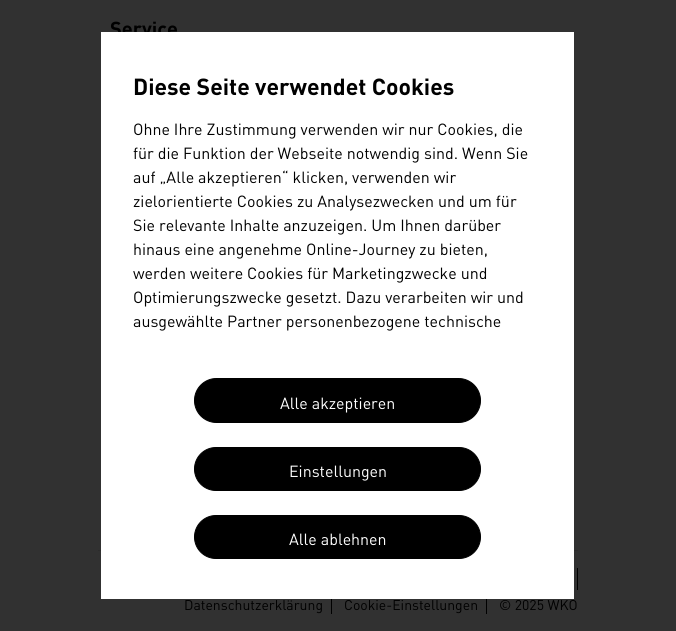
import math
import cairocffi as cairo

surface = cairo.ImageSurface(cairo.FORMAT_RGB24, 676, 631)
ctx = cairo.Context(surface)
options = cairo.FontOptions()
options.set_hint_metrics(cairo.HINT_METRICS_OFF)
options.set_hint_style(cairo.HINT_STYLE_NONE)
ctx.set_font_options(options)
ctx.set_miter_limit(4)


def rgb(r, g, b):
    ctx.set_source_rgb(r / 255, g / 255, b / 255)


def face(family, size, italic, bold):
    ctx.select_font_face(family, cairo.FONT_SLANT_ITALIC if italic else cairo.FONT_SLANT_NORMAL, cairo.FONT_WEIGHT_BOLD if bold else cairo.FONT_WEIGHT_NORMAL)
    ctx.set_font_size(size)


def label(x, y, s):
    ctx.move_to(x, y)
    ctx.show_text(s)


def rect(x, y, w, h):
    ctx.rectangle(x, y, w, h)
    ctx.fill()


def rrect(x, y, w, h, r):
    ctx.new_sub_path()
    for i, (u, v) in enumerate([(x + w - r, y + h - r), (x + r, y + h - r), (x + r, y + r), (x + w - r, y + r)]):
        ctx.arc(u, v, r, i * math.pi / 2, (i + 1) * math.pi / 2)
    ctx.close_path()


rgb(49, 49, 49)
ctx.paint()
face('DIN', 20, 0, 1)
rgb(0, 0, 0)
label(110, 36, 'Service')
rgb(44, 44, 44)
rect(98, 550, 480, 1)
rgb(0, 0, 0)
rect(577, 568, 1, 22)
face('DIN', 14, 0, 0)
label(184, 610, 'Datenschutzerklärung')
rect(331, 592, 1, 22)
label(344, 610, 'Cookie-Einstellungen')
rect(486, 592, 1, 22)
label(499, 610, '© 2025 WKO')
rgb(255, 255, 255)
rect(101, 32, 473, 567)
face('DIN', 23, 0, 1)
rgb(0, 0, 0)
label(133, 95, 'Diese Seite verwendet Cookies')
face('DIN', 16, 0, 0)
label(133, 135, 'Ohne Ihre Zustimmung verwenden wir nur Cookies, die')
label(133, 159, 'für die Funktion der Webseite notwendig sind. Wenn Sie')
label(133, 183, 'auf „Alle akzeptieren“ klicken, verwenden wir')
label(133, 207, 'zielorientierte Cookies zu Analysezwecken und um für')
label(133, 231, 'Sie relevante Inhalte anzuzeigen. Um Ihnen darüber')
label(133, 255, 'hinaus eine angenehme Online-Journey zu bieten,')
label(133, 279, 'werden weitere Cookies für Marketingzwecke und')
label(133, 303, 'Optimierungszwecke gesetzt. Dazu verarbeiten wir und')
label(133, 327, 'ausgewählte Partner personenbezogene technische')
rrect(194.5, 378.5, 286, 44, 22)
ctx.fill_preserve()
ctx.set_line_width(1)
ctx.stroke()
rgb(255, 255, 255)
label(280, 409, 'Alle akzeptieren')
rgb(0, 0, 0)
rrect(194.5, 447.5, 286, 43, 21.5)
ctx.fill_preserve()
ctx.stroke()
rgb(255, 255, 255)
label(289, 477, 'Einstellungen')
rgb(0, 0, 0)
rrect(194.5, 515.5, 286, 43, 21.5)
ctx.fill_preserve()
ctx.stroke()
rgb(255, 255, 255)
label(289, 545, 'Alle ablehnen')
surface.write_to_png('render.png')
